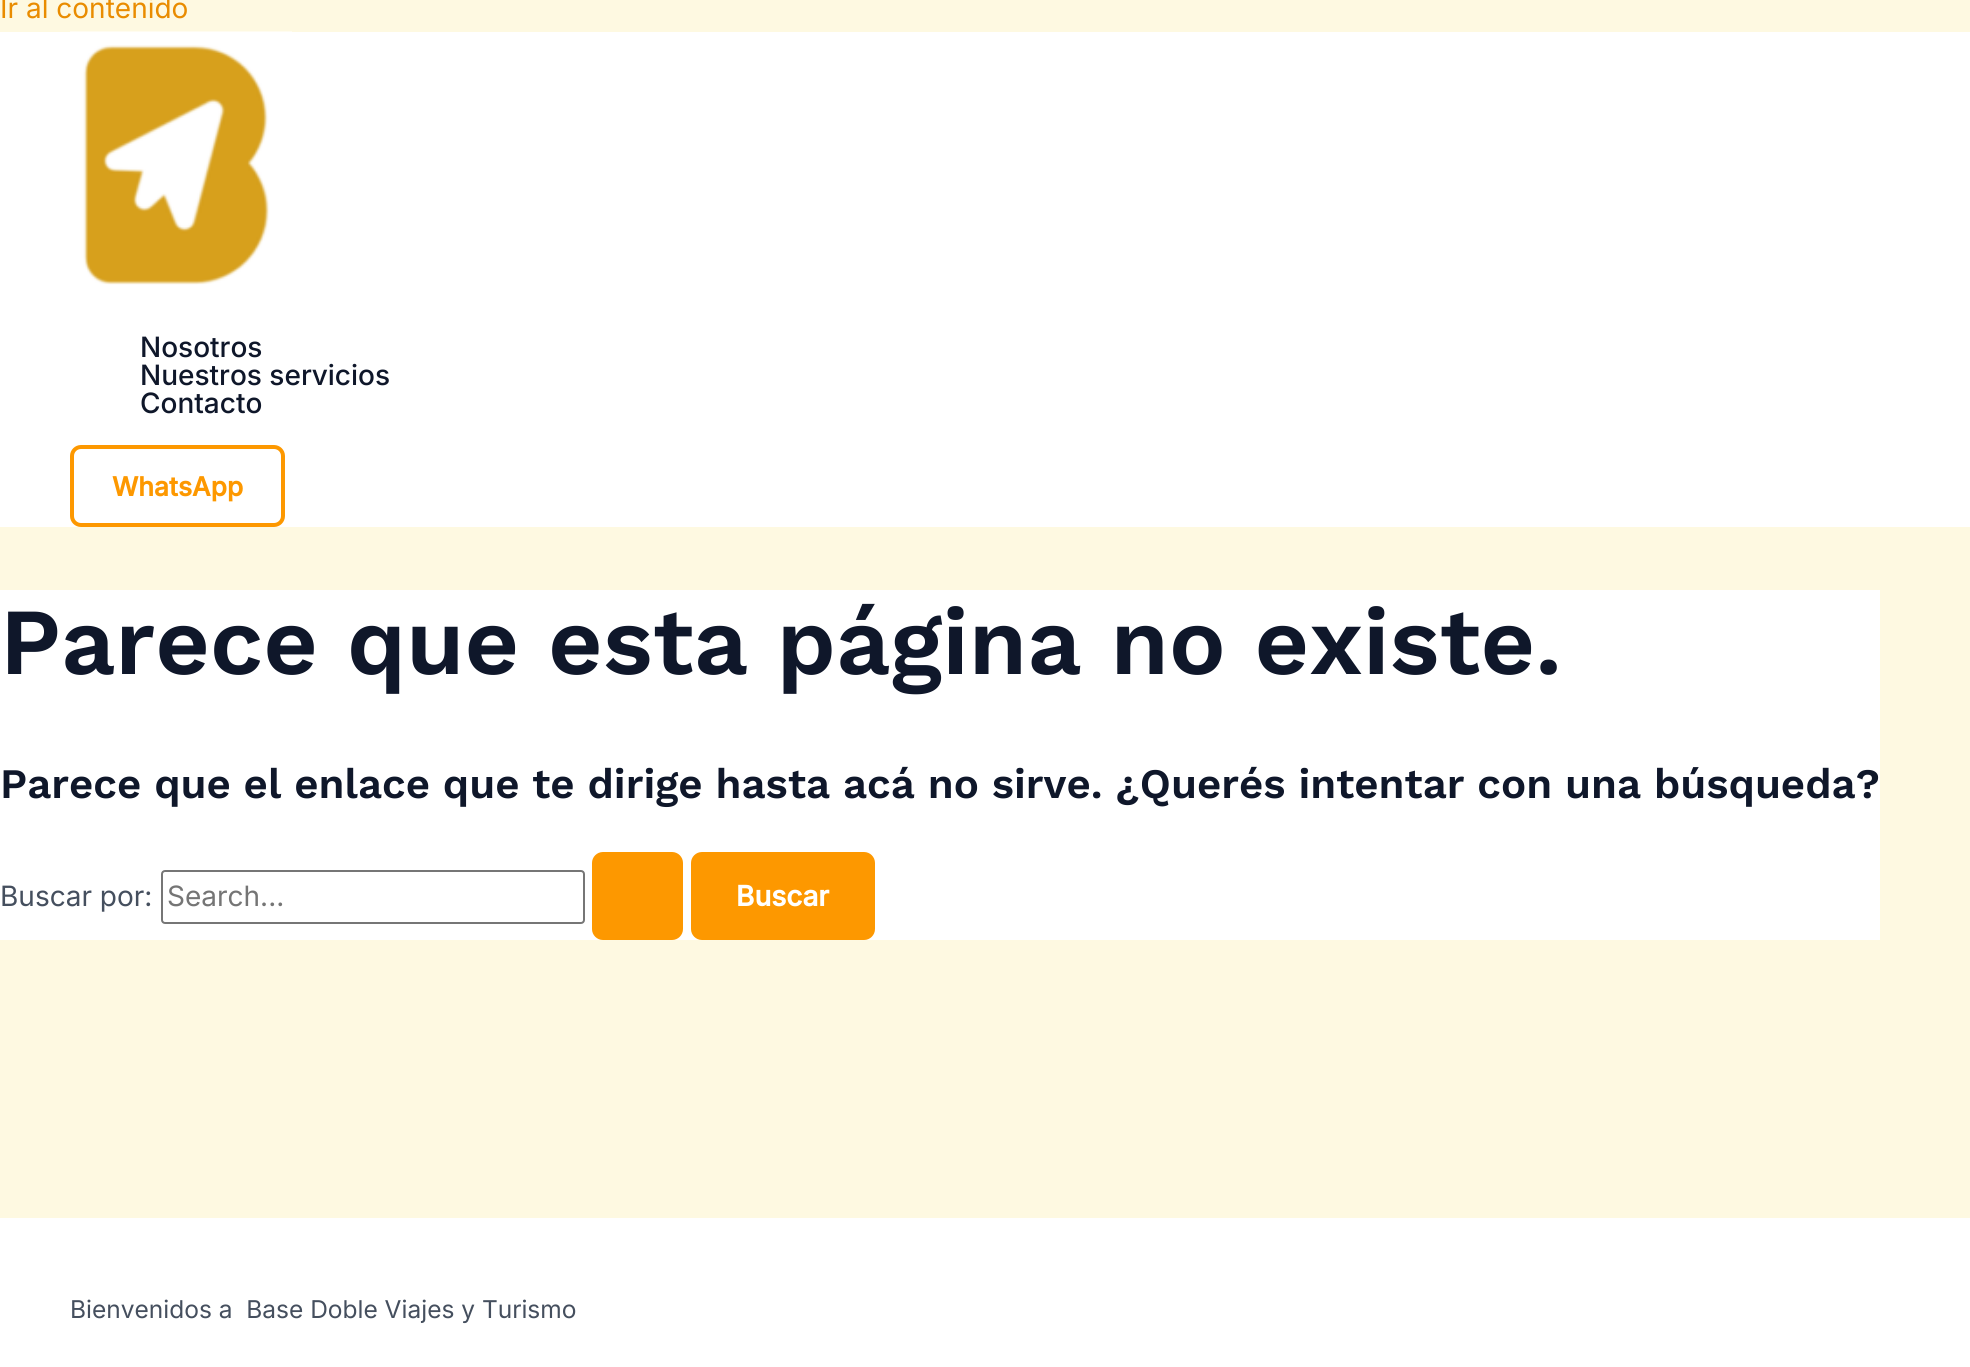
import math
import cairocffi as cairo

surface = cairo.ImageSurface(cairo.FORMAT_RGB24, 1970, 1367)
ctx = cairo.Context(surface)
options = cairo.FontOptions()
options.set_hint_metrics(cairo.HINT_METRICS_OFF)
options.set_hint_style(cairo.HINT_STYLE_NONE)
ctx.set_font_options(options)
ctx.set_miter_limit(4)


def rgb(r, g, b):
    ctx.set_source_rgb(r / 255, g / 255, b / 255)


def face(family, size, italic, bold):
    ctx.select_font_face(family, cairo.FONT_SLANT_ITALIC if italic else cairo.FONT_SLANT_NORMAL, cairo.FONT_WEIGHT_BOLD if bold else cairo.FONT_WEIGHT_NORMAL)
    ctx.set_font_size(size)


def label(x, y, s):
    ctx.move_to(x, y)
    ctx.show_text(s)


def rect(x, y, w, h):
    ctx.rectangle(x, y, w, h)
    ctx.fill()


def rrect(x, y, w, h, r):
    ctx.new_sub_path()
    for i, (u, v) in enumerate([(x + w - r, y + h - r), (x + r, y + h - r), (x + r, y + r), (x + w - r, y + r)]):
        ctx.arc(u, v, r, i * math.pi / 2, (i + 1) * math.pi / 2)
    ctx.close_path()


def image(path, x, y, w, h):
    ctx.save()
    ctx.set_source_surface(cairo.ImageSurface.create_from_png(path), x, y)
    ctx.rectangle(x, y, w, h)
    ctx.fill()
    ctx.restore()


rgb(254, 249, 225)
ctx.paint()
face('Inter', 28, 0, 0)
rgb(233, 140, 0)
label(0, 18, 'Ir al contenido')
rgb(255, 255, 255)
rect(0, 32, 1970, 495)
image('image0.png', 70, 31, 222, 254)
face('Inter Medium', 28, 0, 0)
rgb(15, 23, 42)
label(140, 357, 'Nosotros')
label(140, 385, 'Nuestros servicios')
label(140, 413, 'Contacto')
rrect(72, 447, 211, 78, 9)
rgb(253, 152, 0)
ctx.set_line_width(4)
ctx.stroke()
face('Inter', 26.25, 0, 1)
label(112, 496, 'WhatsApp')
rgb(255, 255, 255)
rect(0, 590, 1880, 350)
face('Work Sans SemiBold', 94.5, 0, 0)
rgb(15, 23, 42)
label(0, 674, 'Parece que esta página no existe.')
face('Work Sans SemiBold', 42, 0, 0)
label(0, 798, 'Parece que el enlace que te dirige hasta acá no sirve. ¿Querés intentar con una búsqueda?')
face('Inter', 28, 0, 0)
rgb(69, 79, 94)
label(0, 906, 'Buscar por:')
rrect(162, 871, 422, 52, 3)
rgb(118, 118, 118)
ctx.set_line_width(2)
ctx.stroke()
rgb(117, 117, 117)
label(167, 906, 'Search...')
rgb(253, 152, 0)
rrect(592, 852, 91, 88, 11)
ctx.fill()
rrect(691, 852, 184, 88, 11)
ctx.fill()
face('Inter', 28, 0, 1)
rgb(255, 255, 255)
label(736, 906, 'Buscar')
rect(0, 1218, 1970, 149)
face('Inter', 24.5, 0, 0)
rgb(69, 79, 94)
label(70, 1318, 'Bienvenidos a  Base Doble Viajes y Turismo')
surface.write_to_png('render.png')
